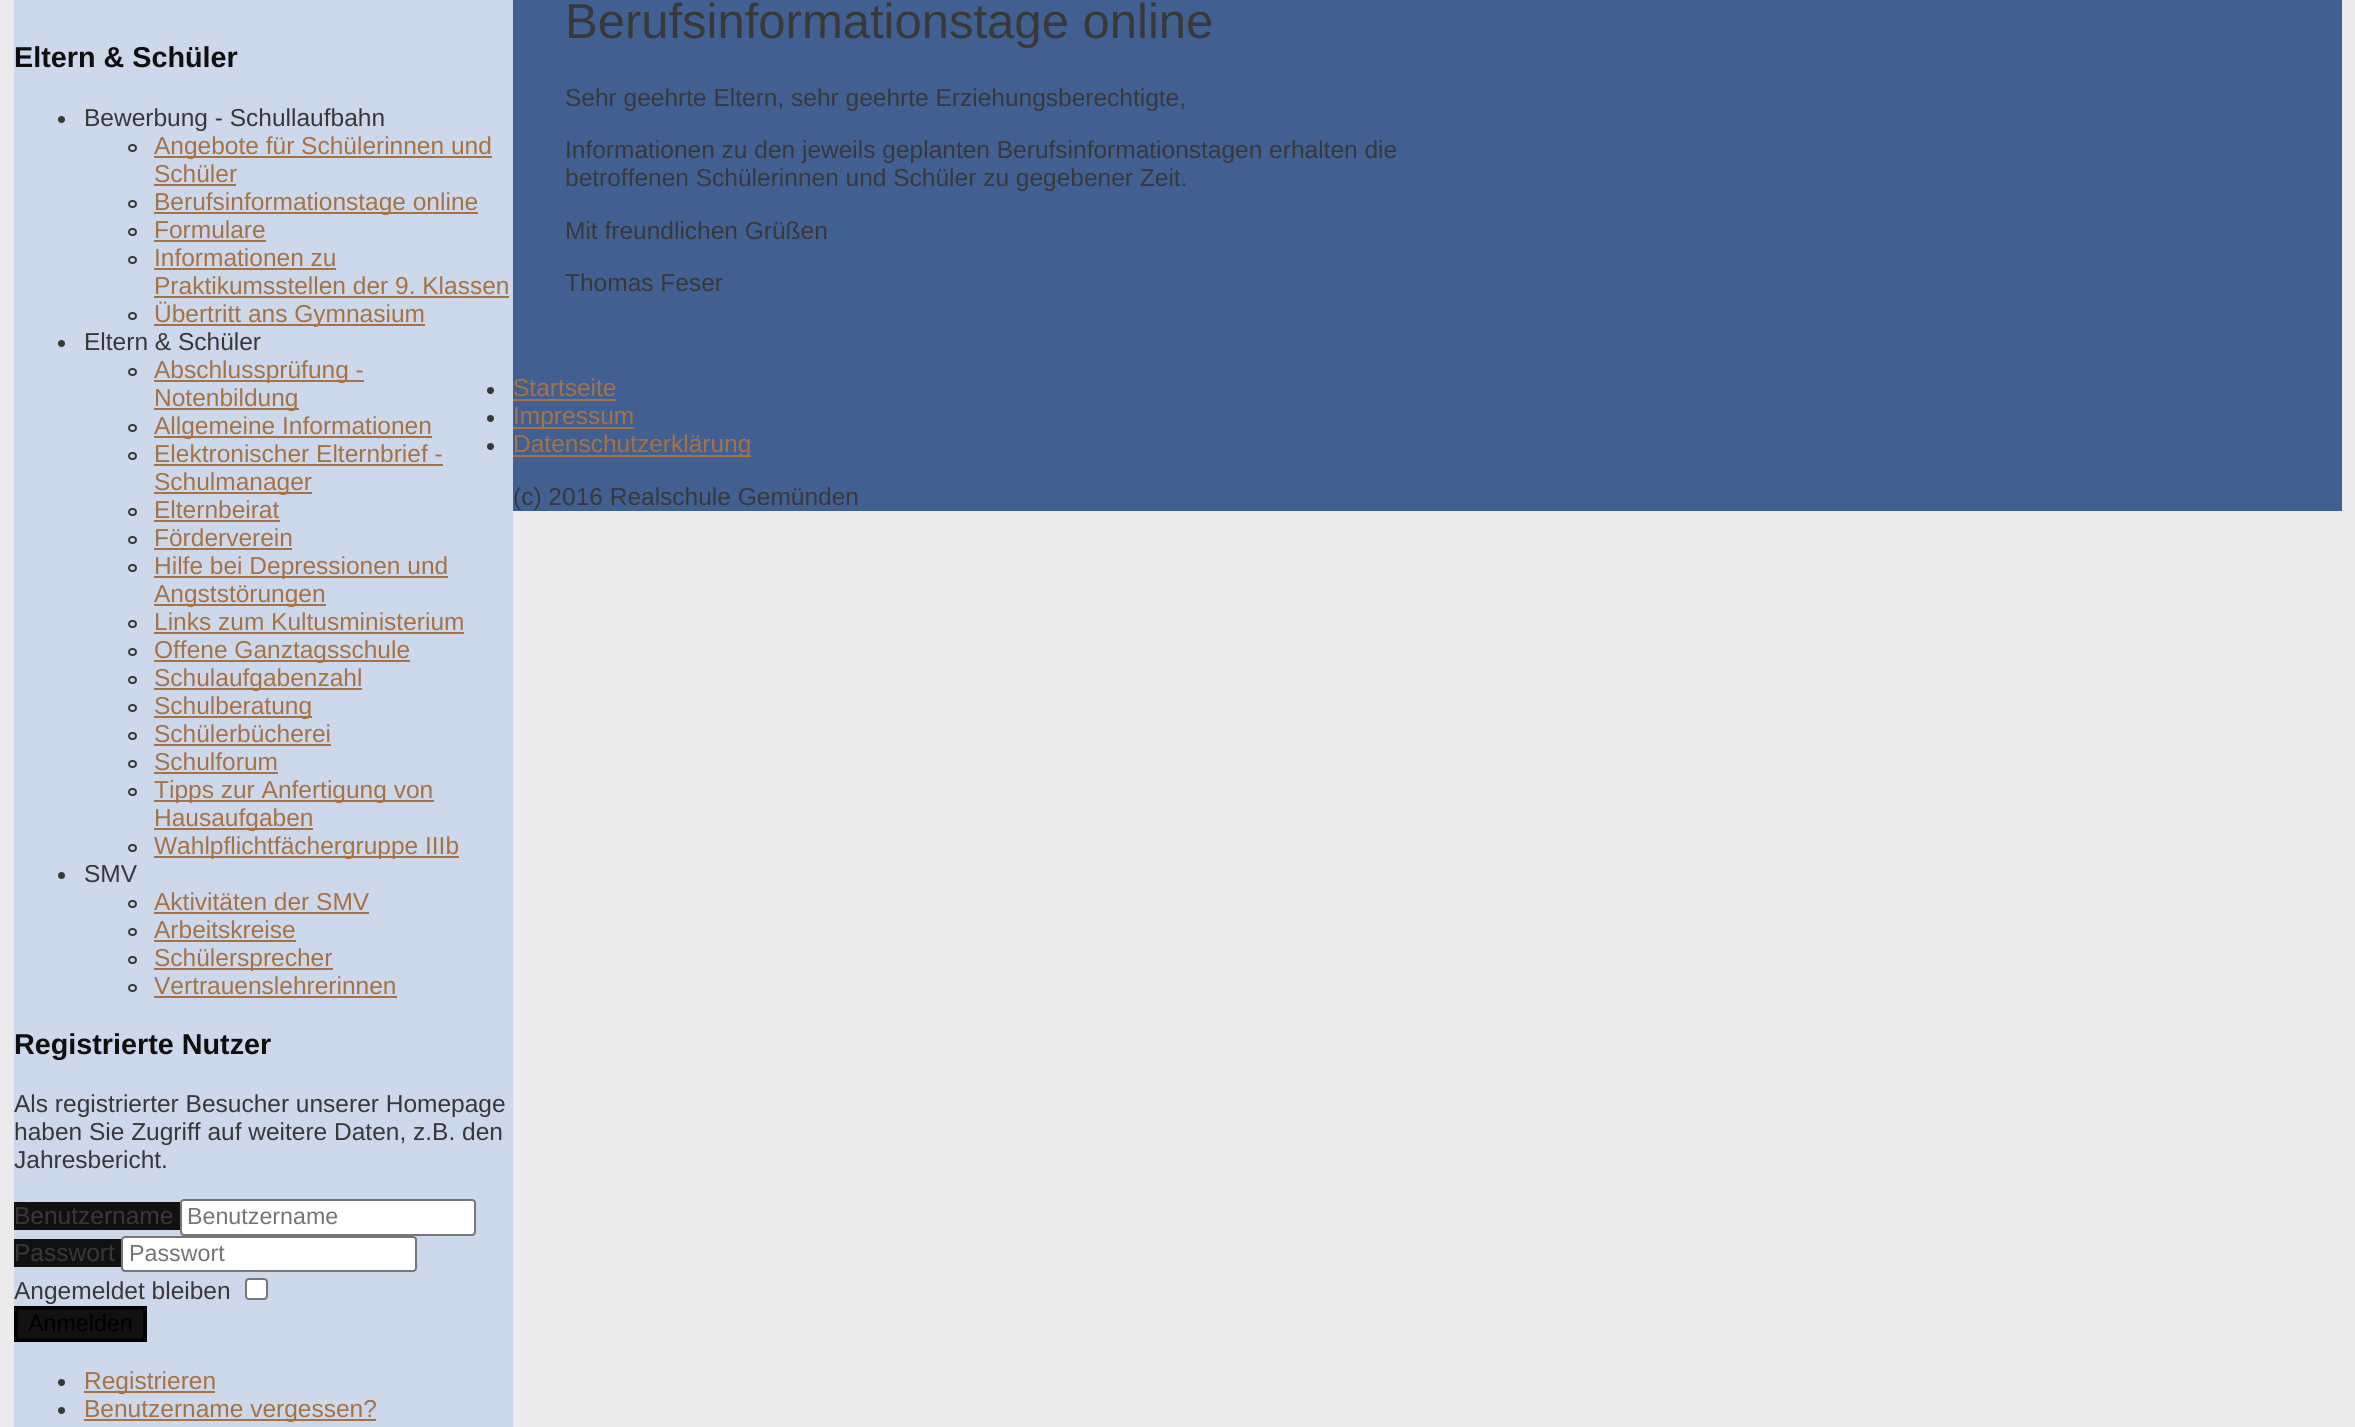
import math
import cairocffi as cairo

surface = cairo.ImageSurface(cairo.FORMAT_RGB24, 2355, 1427)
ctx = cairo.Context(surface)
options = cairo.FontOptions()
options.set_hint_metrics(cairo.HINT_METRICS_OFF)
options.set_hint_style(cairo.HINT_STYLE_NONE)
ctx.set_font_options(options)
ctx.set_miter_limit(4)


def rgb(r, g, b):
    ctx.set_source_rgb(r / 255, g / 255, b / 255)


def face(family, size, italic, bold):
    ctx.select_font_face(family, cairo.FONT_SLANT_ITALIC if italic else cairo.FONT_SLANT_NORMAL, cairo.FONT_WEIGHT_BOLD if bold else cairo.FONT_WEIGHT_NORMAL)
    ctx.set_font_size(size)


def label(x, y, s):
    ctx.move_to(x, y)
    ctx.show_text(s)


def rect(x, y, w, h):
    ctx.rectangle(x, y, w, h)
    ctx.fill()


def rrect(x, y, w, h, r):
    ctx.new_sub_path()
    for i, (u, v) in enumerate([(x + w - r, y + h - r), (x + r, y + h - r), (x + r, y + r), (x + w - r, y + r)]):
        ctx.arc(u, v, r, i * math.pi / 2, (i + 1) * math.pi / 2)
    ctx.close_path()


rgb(235, 235, 235)
ctx.paint()
rgb(205, 216, 235)
rect(14, 0, 499, 1427)
face('Liberation Sans', 28.75, 0, 1)
rgb(15, 15, 15)
label(14, 67, 'Eltern & Schüler')
rgb(56, 56, 56)
ctx.new_path()
ctx.arc(61.5, 119.5, 3.5, 0, 2 * math.pi)
ctx.fill()
face('Liberation Sans', 24.5, 0, 0)
label(84, 126, 'Bewerbung - Schullaufbahn')
rrect(129, 145, 7, 6, 3)
ctx.stroke()
rgb(166, 114, 68)
rect(154, 156, 338, 2)
label(154, 154, 'Angebote für Schülerinnen und')
label(154, 182, 'Schüler')
rect(154, 184, 82, 2)
rrect(129, 201, 7, 6, 3)
rgb(56, 56, 56)
ctx.stroke()
rgb(166, 114, 68)
rect(154, 212, 324, 2)
label(154, 210, 'Berufsinformationstage online')
rrect(129, 229, 7, 6, 3)
rgb(56, 56, 56)
ctx.stroke()
rgb(166, 114, 68)
label(154, 238, 'Formulare')
rect(154, 240, 112, 2)
rrect(129, 257, 7, 6, 3)
rgb(56, 56, 56)
ctx.stroke()
rgb(166, 114, 68)
label(154, 266, 'Informationen zu')
rect(154, 268, 182, 2)
label(154, 294, 'Praktikumsstellen der 9. Klassen')
rect(154, 296, 355, 2)
rrect(129, 313, 7, 6, 3)
rgb(56, 56, 56)
ctx.stroke()
rgb(166, 114, 68)
rect(154, 324, 271, 2)
label(154, 322, 'Übertritt ans Gymnasium')
rgb(56, 56, 56)
ctx.new_path()
ctx.arc(61.5, 343.5, 3.5, 0, 2 * math.pi)
ctx.fill()
label(84, 350, 'Eltern & Schüler')
rrect(129, 369, 7, 6, 3)
ctx.stroke()
rgb(166, 114, 68)
rect(154, 380, 210, 2)
label(154, 378, 'Abschlussprüfung -')
rect(154, 408, 145, 2)
label(154, 406, 'Notenbildung')
rrect(129, 425, 7, 6, 3)
rgb(56, 56, 56)
ctx.stroke()
rgb(166, 114, 68)
rect(154, 436, 278, 2)
label(154, 434, 'Allgemeine Informationen')
rrect(129, 453, 7, 6, 3)
rgb(56, 56, 56)
ctx.stroke()
rgb(166, 114, 68)
label(154, 462, 'Elektronischer Elternbrief -')
rect(154, 464, 289, 2)
rect(154, 492, 158, 2)
label(154, 490, 'Schulmanager')
rrect(129, 509, 7, 6, 3)
rgb(56, 56, 56)
ctx.stroke()
rgb(166, 114, 68)
label(154, 518, 'Elternbeirat')
rect(154, 520, 126, 2)
rrect(129, 537, 7, 6, 3)
rgb(56, 56, 56)
ctx.stroke()
rgb(166, 114, 68)
label(154, 546, 'Förderverein')
rect(154, 548, 138, 2)
rrect(129, 565, 7, 6, 3)
rgb(56, 56, 56)
ctx.stroke()
rgb(166, 114, 68)
rect(154, 576, 294, 2)
label(154, 574, 'Hilfe bei Depressionen und')
rect(154, 604, 172, 2)
label(154, 602, 'Angststörungen')
rrect(129, 621, 7, 6, 3)
rgb(56, 56, 56)
ctx.stroke()
rgb(166, 114, 68)
label(154, 630, 'Links zum Kultusministerium')
rect(154, 632, 310, 2)
rrect(129, 649, 7, 6, 3)
rgb(56, 56, 56)
ctx.stroke()
rgb(166, 114, 68)
rect(154, 660, 256, 2)
label(154, 658, 'Offene Ganztagsschule')
rrect(129, 677, 7, 6, 3)
rgb(56, 56, 56)
ctx.stroke()
rgb(166, 114, 68)
rect(154, 688, 208, 2)
label(154, 686, 'Schulaufgabenzahl')
rrect(129, 705, 7, 6, 3)
rgb(56, 56, 56)
ctx.stroke()
rgb(166, 114, 68)
rect(154, 716, 158, 2)
label(154, 714, 'Schulberatung')
rrect(129, 733, 7, 6, 3)
rgb(56, 56, 56)
ctx.stroke()
rgb(166, 114, 68)
label(154, 742, 'Schülerbücherei')
rect(154, 744, 177, 2)
rrect(129, 761, 7, 6, 3)
rgb(56, 56, 56)
ctx.stroke()
rgb(166, 114, 68)
label(154, 770, 'Schulforum')
rect(154, 772, 124, 2)
rrect(129, 789, 7, 6, 3)
rgb(56, 56, 56)
ctx.stroke()
rgb(166, 114, 68)
rect(154, 800, 280, 2)
label(154, 798, 'Tipps zur Anfertigung von')
rect(154, 828, 159, 2)
label(154, 826, 'Hausaufgaben')
rrect(129, 845, 7, 6, 3)
rgb(56, 56, 56)
ctx.stroke()
rgb(166, 114, 68)
rect(154, 856, 305, 2)
label(154, 854, 'Wahlpflichtfächergruppe IIIb')
rgb(56, 56, 56)
ctx.new_path()
ctx.arc(61.5, 875.5, 3.5, 0, 2 * math.pi)
ctx.fill()
label(84, 882, 'SMV')
rrect(129, 901, 7, 6, 3)
ctx.stroke()
rgb(166, 114, 68)
label(154, 910, 'Aktivitäten der SMV')
rect(154, 912, 215, 2)
rrect(129, 929, 7, 6, 3)
rgb(56, 56, 56)
ctx.stroke()
rgb(166, 114, 68)
label(154, 938, 'Arbeitskreise')
rect(154, 940, 142, 2)
rrect(129, 957, 7, 6, 3)
rgb(56, 56, 56)
ctx.stroke()
rgb(166, 114, 68)
rect(154, 968, 179, 2)
label(154, 966, 'Schülersprecher')
rrect(129, 985, 7, 6, 3)
rgb(56, 56, 56)
ctx.stroke()
rgb(166, 114, 68)
label(154, 994, 'Vertrauenslehrerinnen')
rect(154, 996, 243, 2)
face('Liberation Sans', 28.75, 0, 1)
rgb(15, 15, 15)
label(14, 1054, 'Registrierte Nutzer')
face('Liberation Sans', 24.5, 0, 0)
rgb(56, 56, 56)
label(14, 1112, 'Als registrierter Besucher unserer Homepage')
label(14, 1140, 'haben Sie Zugriff auf weitere Daten, z.B. den')
label(14, 1168, 'Jahresbericht.')
rgb(17, 17, 17)
rect(14, 1202, 166, 28)
rgb(56, 56, 56)
label(14, 1224, 'Benutzername')
rgb(255, 255, 255)
rrect(181, 1200, 294, 35, 3)
ctx.fill_preserve()
rgb(118, 118, 118)
ctx.stroke()
face('Liberation Sans', 23.25, 0, 0)
rgb(117, 117, 117)
label(187, 1224, 'Benutzername')
rgb(17, 17, 17)
rect(14, 1239, 107, 28)
face('Liberation Sans', 24.5, 0, 0)
rgb(56, 56, 56)
label(14, 1261, 'Passwort')
rgb(255, 255, 255)
rrect(122, 1237, 294, 34, 3)
ctx.fill_preserve()
rgb(118, 118, 118)
ctx.stroke()
face('Liberation Sans', 23.25, 0, 0)
rgb(117, 117, 117)
label(129, 1261, 'Passwort')
face('Liberation Sans', 24.5, 0, 0)
rgb(56, 56, 56)
label(14, 1299, 'Angemeldet bleiben')
rgb(255, 255, 255)
rrect(246, 1279, 21, 20, 3)
ctx.fill_preserve()
rgb(118, 118, 118)
ctx.stroke()
rgb(17, 17, 17)
ctx.rectangle(16, 1308, 129, 32)
ctx.fill_preserve()
rgb(0, 0, 0)
ctx.set_line_width(4)
ctx.stroke()
face('Liberation Sans', 23.25, 0, 0)
label(28, 1331, 'Anmelden')
rgb(56, 56, 56)
ctx.new_path()
ctx.arc(61.5, 1382.5, 3.5, 0, 2 * math.pi)
ctx.fill()
rgb(166, 114, 68)
rect(84, 1391, 131, 2)
face('Liberation Sans', 24.5, 0, 0)
label(84, 1389, 'Registrieren')
rgb(56, 56, 56)
ctx.new_path()
ctx.arc(61.5, 1410.5, 3.5, 0, 2 * math.pi)
ctx.fill()
rgb(166, 114, 68)
rect(84, 1419, 292, 2)
label(84, 1417, 'Benutzername vergessen?')
rgb(65, 95, 145)
rect(513, 0, 1829, 511)
face('Liberation Sans', 49, 0, 0)
rgb(56, 56, 56)
label(565, 38, 'Berufsinformationstage online')
face('Liberation Sans', 24.5, 0, 0)
label(565, 106, 'Sehr geehrte Eltern, sehr geehrte Erziehungsberechtigte,')
label(565, 158, 'Informationen zu den jeweils geplanten Berufsinformationstagen erhalten die')
label(565, 186, 'betroffenen Schülerinnen und Schüler zu gegebener Zeit.')
label(565, 239, 'Mit freundlichen Grüßen')
label(565, 291, 'Thomas Feser')
ctx.new_path()
ctx.arc(490.5, 390.5, 3.5, 0, 2 * math.pi)
ctx.fill()
rgb(166, 114, 68)
label(513, 396, 'Startseite')
rect(513, 399, 103, 2)
rgb(56, 56, 56)
ctx.new_path()
ctx.arc(490.5, 418.5, 3.5, 0, 2 * math.pi)
ctx.fill()
rgb(166, 114, 68)
rect(513, 427, 121, 2)
label(513, 424, 'Impressum')
rgb(56, 56, 56)
ctx.new_path()
ctx.arc(490.5, 446.5, 3.5, 0, 2 * math.pi)
ctx.fill()
rgb(166, 114, 68)
rect(513, 455, 238, 2)
label(513, 452, 'Datenschutzerklärung')
rgb(56, 56, 56)
label(513, 505, '(c) 2016 Realschule Gemünden')
surface.write_to_png('render.png')
